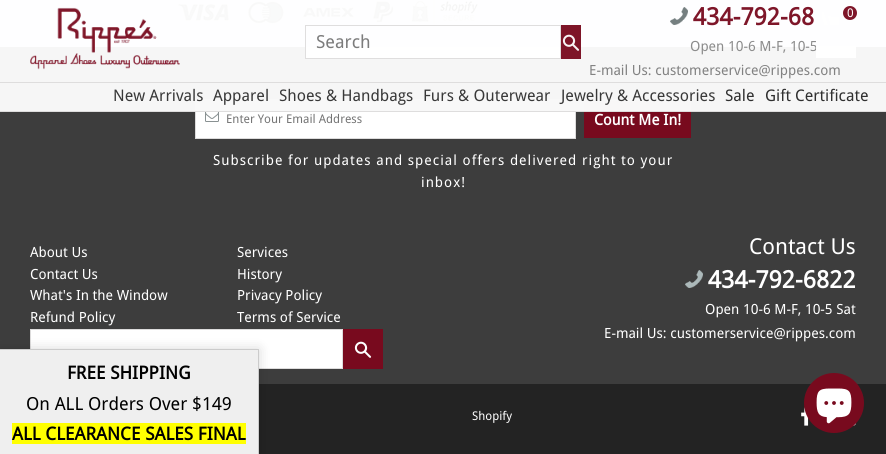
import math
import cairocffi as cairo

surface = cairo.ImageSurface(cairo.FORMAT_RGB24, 886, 454)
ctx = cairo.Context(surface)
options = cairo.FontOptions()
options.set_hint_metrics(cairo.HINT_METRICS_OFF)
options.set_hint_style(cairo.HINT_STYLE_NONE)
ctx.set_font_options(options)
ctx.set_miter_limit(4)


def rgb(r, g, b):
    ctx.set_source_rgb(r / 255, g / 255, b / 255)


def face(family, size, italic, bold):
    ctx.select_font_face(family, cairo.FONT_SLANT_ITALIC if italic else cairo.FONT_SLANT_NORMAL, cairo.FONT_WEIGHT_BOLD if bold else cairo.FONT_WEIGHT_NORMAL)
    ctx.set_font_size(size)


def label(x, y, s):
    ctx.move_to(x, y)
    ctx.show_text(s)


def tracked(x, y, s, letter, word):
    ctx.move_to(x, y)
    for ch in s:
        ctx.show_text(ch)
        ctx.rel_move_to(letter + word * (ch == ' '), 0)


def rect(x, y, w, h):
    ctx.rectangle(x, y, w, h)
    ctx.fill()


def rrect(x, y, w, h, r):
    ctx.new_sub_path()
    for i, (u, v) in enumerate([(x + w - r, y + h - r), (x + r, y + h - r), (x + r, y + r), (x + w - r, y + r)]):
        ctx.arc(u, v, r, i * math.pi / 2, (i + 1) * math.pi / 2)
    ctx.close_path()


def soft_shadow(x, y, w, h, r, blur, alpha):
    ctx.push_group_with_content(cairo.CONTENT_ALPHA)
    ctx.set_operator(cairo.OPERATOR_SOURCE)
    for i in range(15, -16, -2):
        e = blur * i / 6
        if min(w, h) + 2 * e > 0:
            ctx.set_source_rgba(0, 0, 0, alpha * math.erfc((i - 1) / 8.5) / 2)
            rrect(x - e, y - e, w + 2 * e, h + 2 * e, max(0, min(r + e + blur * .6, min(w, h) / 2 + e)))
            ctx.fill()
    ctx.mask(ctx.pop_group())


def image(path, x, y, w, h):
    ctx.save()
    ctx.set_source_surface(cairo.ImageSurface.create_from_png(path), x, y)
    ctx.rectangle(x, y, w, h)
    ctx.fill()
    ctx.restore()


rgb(241, 244, 245)
ctx.paint()
image('image4.png', 178, 0, 300, 24)
rgb(61, 61, 61)
rect(0, 47, 886, 337)
rgb(255, 255, 255)
ctx.rectangle(195.5, 99.5, 380, 39)
ctx.fill_preserve()
rgb(221, 220, 220)
ctx.set_line_width(1)
ctx.stroke()
rgb(120, 10, 30)
rect(584, 101, 107, 37)
ctx.set_source_rgba(1, 1, 1, 0.95)
rect(0, 0, 886, 111)
image('image0.png', 30, 7, 150, 63)
image('image1.png', 670, 7, 18, 18)
face('Droid Sans', 24, 0, 1)
rgb(126, 22, 41)
label(693, 25, '434-792-68')
face('Droid Sans', 14, 0, 0)
rgb(140, 140, 140)
label(690, 51, 'Open 10-6 M-F, 10-5')
rgb(130, 130, 130)
label(589, 75, 'E-mail Us: customerservice@rippes.com')
ctx.set_source_rgba(1, 1, 1, 0.95)
rect(816, 46, 40, 12)
image('image2.png', 822, 12, 17, 13)
rgb(126, 22, 41)
ctx.arc(850, 13, 7, 0, 2 * math.pi)
ctx.fill()
face('Droid Sans', 12, 0, 0)
rgb(255, 255, 255)
label(847, 17, '0')
ctx.set_source_rgba(1, 1, 1, 0.95)
rect(306, 47, 254, 11)
ctx.rectangle(305.5, 25.5, 255, 33)
rgb(223, 222, 222)
ctx.stroke()
face('Droid Sans', 18, 0, 0)
rgb(124, 124, 124)
label(316, 48, 'Search')
ctx.set_source_rgba(0.471, 0.039, 0.118, 0.95)
rect(561, 25, 20, 34)
image('image3.png', 562, 34, 18, 17)
ctx.set_source_rgba(0.973, 0.973, 0.973, 0.95)
rect(195, 99, 496, 12)
rgb(222, 221, 221)
rect(0, 82, 886, 1)
rect(0, 111, 886, 1)
face('Droid Sans', 16, 0, 0)
rgb(56, 56, 56)
label(113, 101, 'New Arrivals')
label(213, 101, 'Apparel')
label(279, 101, 'Shoes & Handbags')
label(423, 101, 'Furs & Outerwear')
label(561, 101, 'Jewelry & Accessories')
rgb(47, 47, 47)
label(725, 101, 'Sale')
label(765, 101, 'Gift Certificate')
image('image5.png', 205, 112, 14, 10)
face('Droid Sans', 12, 0, 0)
rgb(117, 117, 117)
label(226, 123, 'Enter Your Email Address')
face('Droid Sans', 15, 0, 1)
rgb(255, 255, 255)
label(594, 125, 'Count Me In!')
face('Droid Sans', 14, 0, 0)
tracked(213, 165, 'Subscribe for updates and special offers delivered right to your', 1, 0)
tracked(421, 187, 'inbox!', 1, 0)
label(30, 257, 'About Us')
label(237, 257, 'Services')
label(30, 279, 'Contact Us')
label(237, 279, 'History')
label(30, 300, 'What\'s In the Window')
label(237, 300, 'Privacy Policy')
label(30, 322, 'Refund Policy')
label(237, 322, 'Terms of Service')
ctx.rectangle(30.5, 329.5, 312, 39)
ctx.fill_preserve()
rgb(221, 220, 220)
ctx.stroke()
rgb(120, 10, 30)
rect(343, 329, 40, 40)
image('image6.png', 354, 341, 18, 17)
face('Droid Sans', 22, 0, 0)
rgb(255, 255, 255)
label(749, 254, 'Contact Us')
image('image7.png', 685, 270, 18, 18)
face('Droid Sans', 24, 0, 1)
label(708, 288, '434-792-6822')
face('Droid Sans', 14, 0, 0)
label(705, 314, 'Open 10-6 M-F, 10-5 Sat')
label(604, 338, 'E-mail Us: customerservice@rippes.com')
rgb(35, 35, 35)
rect(259, 384, 627, 70)
rgb(0, 0, 0)
soft_shadow(0, 349, 259, 105, 0, 6, 0.15)
rgb(239, 239, 239)
rect(0, 349, 259, 105)
rgb(203, 203, 203)
ctx.new_path()
ctx.move_to(0, 349)
ctx.line_to(259, 349)
ctx.line_to(258, 350)
ctx.line_to(0, 350)
ctx.close_path()
ctx.fill()
ctx.set_source_rgba(0, 0, 0, 0.15)
ctx.new_path()
ctx.move_to(259, 349)
ctx.line_to(259, 454)
ctx.line_to(258, 454)
ctx.line_to(258, 350)
ctx.close_path()
ctx.fill()
face('Droid Sans', 18, 0, 1)
rgb(0, 0, 0)
label(67, 379, 'FREE SHIPPING')
face('Droid Sans', 18, 0, 0)
label(26, 410, 'On ALL Orders Over $149')
rgb(255, 255, 0)
rect(12, 423, 234, 21)
face('Droid Sans', 18, 0, 1)
rgb(0, 0, 0)
label(12, 440, 'ALL CLEARANCE SALES FINAL')
face('Droid Sans', 12, 0, 0)
rgb(255, 255, 255)
label(472, 420, 'Shopify')
image('image8.png', 801, 407, 8, 19)
image('image9.png', 853, 423, 3, 3)
rgb(120, 10, 30)
ctx.arc(834, 403, 30, 0, 2 * math.pi)
ctx.fill()
image('image10.png', 816, 388, 36, 36)
surface.write_to_png('render.png')
